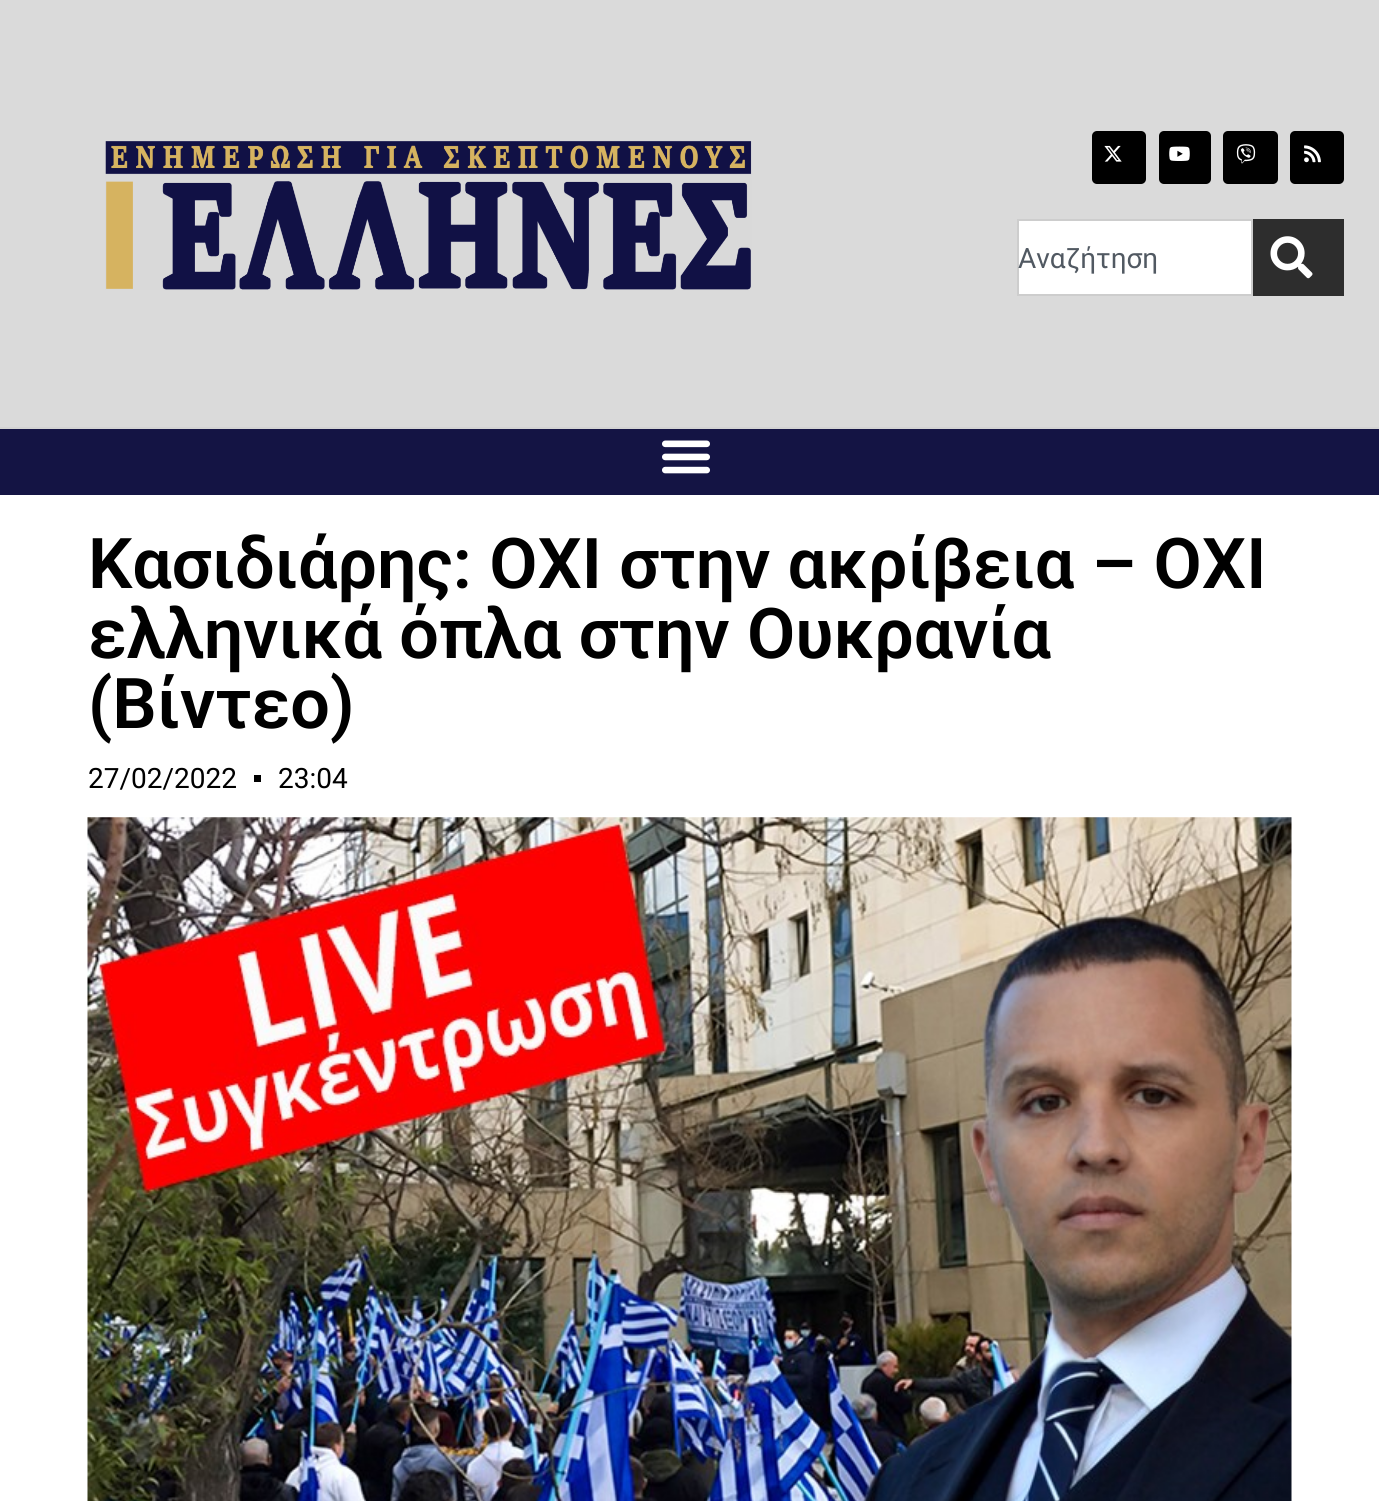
import math
import cairocffi as cairo

surface = cairo.ImageSurface(cairo.FORMAT_RGB24, 1379, 1501)
ctx = cairo.Context(surface)
options = cairo.FontOptions()
options.set_hint_metrics(cairo.HINT_METRICS_OFF)
options.set_hint_style(cairo.HINT_STYLE_NONE)
ctx.set_font_options(options)
ctx.set_miter_limit(4)


def rgb(r, g, b):
    ctx.set_source_rgb(r / 255, g / 255, b / 255)


def face(family, size, italic, bold):
    ctx.select_font_face(family, cairo.FONT_SLANT_ITALIC if italic else cairo.FONT_SLANT_NORMAL, cairo.FONT_WEIGHT_BOLD if bold else cairo.FONT_WEIGHT_NORMAL)
    ctx.set_font_size(size)


def label(x, y, s):
    ctx.move_to(x, y)
    ctx.show_text(s)


def rect(x, y, w, h):
    ctx.rectangle(x, y, w, h)
    ctx.fill()


def rrect(x, y, w, h, r):
    ctx.new_sub_path()
    for i, (u, v) in enumerate([(x + w - r, y + h - r), (x + r, y + h - r), (x + r, y + r), (x + w - r, y + r)]):
        ctx.arc(u, v, r, i * math.pi / 2, (i + 1) * math.pi / 2)
    ctx.close_path()


def image(path, x, y, w, h):
    ctx.save()
    ctx.set_source_surface(cairo.ImageSurface.create_from_png(path), x, y)
    ctx.rectangle(x, y, w, h)
    ctx.fill()
    ctx.restore()


rgb(255, 255, 255)
ctx.paint()
rgb(218, 218, 218)
rect(0, 0, 1379, 427)
rgb(211, 211, 211)
rect(0, 427, 1379, 2)
image('image0.png', 105, 141, 647, 149)
rgb(0, 0, 0)
rrect(1092, 131, 54, 53, 5)
ctx.fill()
image('image1.png', 1104, 145, 18, 17)
rrect(1159, 131, 52, 53, 5)
ctx.fill()
image('image2.png', 1169, 146, 21, 15)
rrect(1223, 131, 55, 53, 5)
ctx.fill()
image('image3.png', 1236, 144, 20, 20)
rrect(1290, 131, 54, 53, 5)
ctx.fill()
image('image4.png', 1304, 145, 17, 18)
rgb(255, 255, 255)
ctx.rectangle(1018, 220, 234, 75)
ctx.fill_preserve()
rgb(205, 205, 205)
ctx.stroke()
face('Roboto', 28, 0, 0)
rgb(81, 89, 98)
label(1018, 268, 'Αναζήτηση')
rgb(45, 45, 45)
rect(1253, 219, 91, 77)
image('image5.png', 1270, 236, 43, 43)
rgb(20, 20, 68)
rect(0, 429, 1379, 66)
image('image6.png', 662, 440, 48, 34)
face('Roboto SemiBold', 70, 0, 0)
rgb(0, 0, 0)
label(88, 588, 'Κασιδιάρης: ΟΧΙ στην ακρίβεια – ΟΧΙ')
label(88, 658, 'ελληνικά όπλα στην Ουκρανία')
label(88, 728, '(Βίντεο)')
face('Roboto', 28, 0, 0)
label(88, 788, '27/02/2022')
rect(254, 775, 7, 7)
label(278, 788, '23:04')
image('image7.png', 87, 817, 1205, 684)
surface.write_to_png('render.png')
